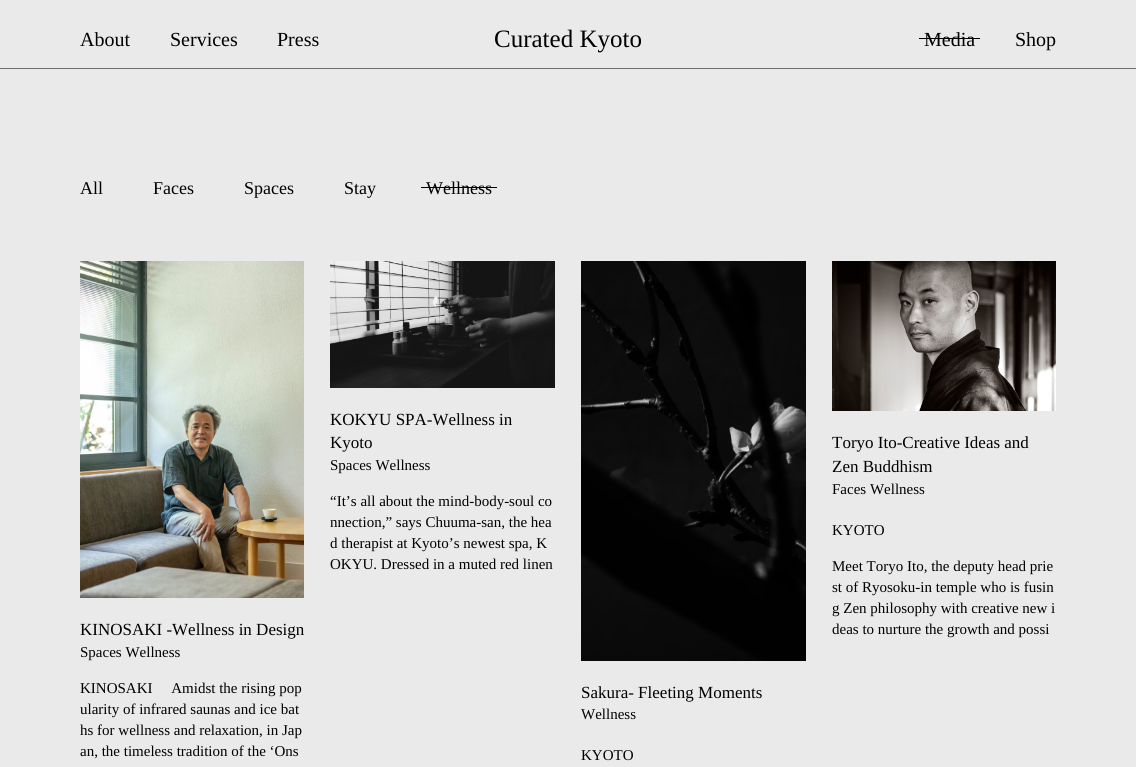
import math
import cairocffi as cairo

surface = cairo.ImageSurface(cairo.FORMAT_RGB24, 1136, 767)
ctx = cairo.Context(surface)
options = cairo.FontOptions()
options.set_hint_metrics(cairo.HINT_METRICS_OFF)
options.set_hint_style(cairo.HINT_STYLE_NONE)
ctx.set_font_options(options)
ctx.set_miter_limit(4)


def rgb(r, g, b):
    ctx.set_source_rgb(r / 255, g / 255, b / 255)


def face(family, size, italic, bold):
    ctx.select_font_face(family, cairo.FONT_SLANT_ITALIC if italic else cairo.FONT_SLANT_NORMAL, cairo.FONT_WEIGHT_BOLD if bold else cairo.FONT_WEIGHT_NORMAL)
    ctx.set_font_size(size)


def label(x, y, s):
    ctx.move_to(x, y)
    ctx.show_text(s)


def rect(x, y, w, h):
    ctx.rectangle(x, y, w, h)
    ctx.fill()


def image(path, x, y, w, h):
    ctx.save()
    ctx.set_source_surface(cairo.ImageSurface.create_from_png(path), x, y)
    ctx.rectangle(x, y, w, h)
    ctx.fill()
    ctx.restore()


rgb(234, 234, 234)
ctx.paint()
rgb(112, 112, 112)
rect(0, 68, 1136, 1)
face('Liberation Serif', 25, 0, 0)
rgb(0, 0, 0)
label(494, 47, 'Curated Kyoto')
face('Liberation Serif', 20, 0, 0)
label(80, 46, 'About')
label(170, 46, 'Services')
label(277, 46, 'Press')
label(924, 46, 'Media')
rect(919, 38, 61, 1)
label(1015, 46, 'Shop')
face('Liberation Serif', 18, 0, 0)
label(80, 194, 'All')
label(153, 194, 'Faces')
label(244, 194, 'Spaces')
label(344, 194, 'Stay')
label(426, 194, 'Wellness')
rect(421, 187, 76, 1)
image('image0.png', 330, 261, 225, 127)
face('Liberation Serif', 17, 0, 0)
label(330, 425, 'KOKYU SPA-Wellness in')
label(330, 448, 'Kyoto')
face('Liberation Serif', 15, 0, 0)
label(330, 470, 'Spaces Wellness')
label(330, 506, '“It’s all about the mind-body-soul co')
label(330, 527, 'nnection,” says Chuuma-san, the hea')
label(330, 548, 'd therapist at Kyoto’s newest spa, K')
label(330, 569, 'OKYU. Dressed in a muted red linen')
image('image1.png', 832, 261, 224, 150)
face('Liberation Serif', 17, 0, 0)
label(832, 448, 'Toryo Ito-Creative Ideas and')
label(832, 472, 'Zen Buddhism')
face('Liberation Serif', 15, 0, 0)
label(832, 494, 'Faces Wellness')
label(832, 535, 'KYOTO')
label(832, 571, 'Meet Toryo Ito, the deputy head prie')
label(832, 592, 'st of Ryosoku-in temple who is fusin')
label(832, 613, 'g Zen philosophy with creative new i')
label(832, 634, 'deas to nurture the growth and possi')
image('image2.png', 80, 261, 224, 337)
face('Liberation Serif', 17, 0, 0)
label(80, 635, 'KINOSAKI -Wellness in Design')
face('Liberation Serif', 15, 0, 0)
label(80, 657, 'Spaces Wellness')
label(80, 693, 'KINOSAKI     Amidst the rising pop')
label(80, 714, 'ularity of infrared saunas and ice bat')
label(80, 735, 'hs for wellness and relaxation, in Jap')
label(80, 756, 'an, the timeless tradition of the ‘Ons')
image('image3.png', 581, 261, 225, 400)
face('Liberation Serif', 17, 0, 0)
label(581, 698, 'Sakura- Fleeting Moments')
face('Liberation Serif', 15, 0, 0)
label(581, 719, 'Wellness')
label(581, 760, 'KYOTO')
surface.write_to_png('render.png')
